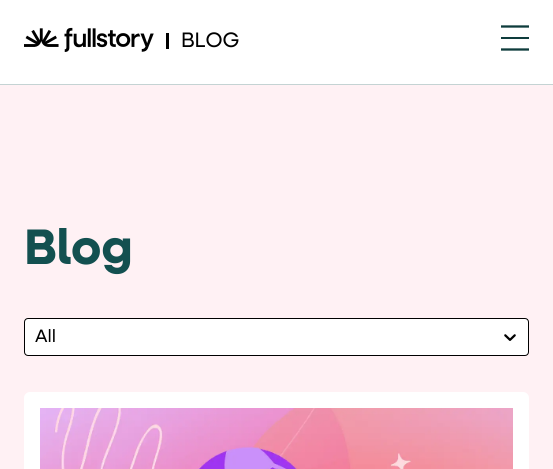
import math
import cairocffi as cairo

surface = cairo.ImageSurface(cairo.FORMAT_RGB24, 553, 469)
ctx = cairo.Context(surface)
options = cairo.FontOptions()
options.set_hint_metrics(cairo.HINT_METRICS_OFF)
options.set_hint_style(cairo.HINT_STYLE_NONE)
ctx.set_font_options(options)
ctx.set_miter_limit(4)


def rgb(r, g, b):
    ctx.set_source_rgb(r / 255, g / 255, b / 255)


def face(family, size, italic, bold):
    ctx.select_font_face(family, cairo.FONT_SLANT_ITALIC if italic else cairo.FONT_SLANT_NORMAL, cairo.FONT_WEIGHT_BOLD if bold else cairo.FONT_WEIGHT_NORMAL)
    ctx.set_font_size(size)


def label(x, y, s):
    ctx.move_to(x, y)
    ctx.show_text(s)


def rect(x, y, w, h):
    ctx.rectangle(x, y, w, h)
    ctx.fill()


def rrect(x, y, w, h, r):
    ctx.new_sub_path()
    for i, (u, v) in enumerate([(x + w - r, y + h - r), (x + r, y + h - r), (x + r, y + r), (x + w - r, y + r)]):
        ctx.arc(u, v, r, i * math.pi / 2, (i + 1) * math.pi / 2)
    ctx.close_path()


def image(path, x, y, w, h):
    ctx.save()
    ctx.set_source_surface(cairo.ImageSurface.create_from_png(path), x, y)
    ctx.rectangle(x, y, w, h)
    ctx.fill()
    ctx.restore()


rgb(255, 241, 244)
ctx.paint()
rgb(255, 255, 255)
rect(0, 0, 553, 84)
rgb(196, 211, 211)
rect(0, 84, 553, 1)
image('image0.png', 24, 27, 130, 25)
rgb(0, 0, 0)
rect(166, 33, 3, 16)
face('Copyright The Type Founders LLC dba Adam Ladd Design', 21, 0, 0)
label(181, 47, 'BLOG')
ctx.save()
ctx.rectangle(501, 24, 28, 28)
ctx.clip()
ctx.new_path()
ctx.move_to(532.5, 26.5)
ctx.line_to(497.5, 26.5)
rgb(14, 60, 60)
ctx.set_line_width(2.3)
ctx.stroke()
ctx.restore()
rgb(14, 60, 60)
rect(501, 37, 28, 2)
ctx.save()
ctx.rectangle(501, 24, 28, 28)
ctx.clip()
ctx.new_path()
ctx.move_to(532.5, 49.5)
ctx.line_to(497.5, 49.5)
ctx.set_line_width(2.3)
ctx.stroke()
ctx.restore()
face('Copyright The Type Founders LLC dba Adam Ladd Design', 50, 0, 1)
rgb(19, 80, 80)
label(24, 264, 'Blog')
rgb(255, 255, 255)
rrect(24.5, 318.5, 504, 37, 3.5)
ctx.fill_preserve()
rgb(0, 0, 0)
ctx.set_line_width(1)
ctx.stroke()
face('Copyright The Type Founders LLC dba Adam Ladd Design', 18, 0, 0)
label(35, 342, 'All')
image('image1.png', 504, 334, 12, 7)
rgb(255, 255, 255)
rrect(24, 392, 505, 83, 6)
ctx.fill()
image('image2.png', 40, 408, 473, 61)
surface.write_to_png('render.png')
